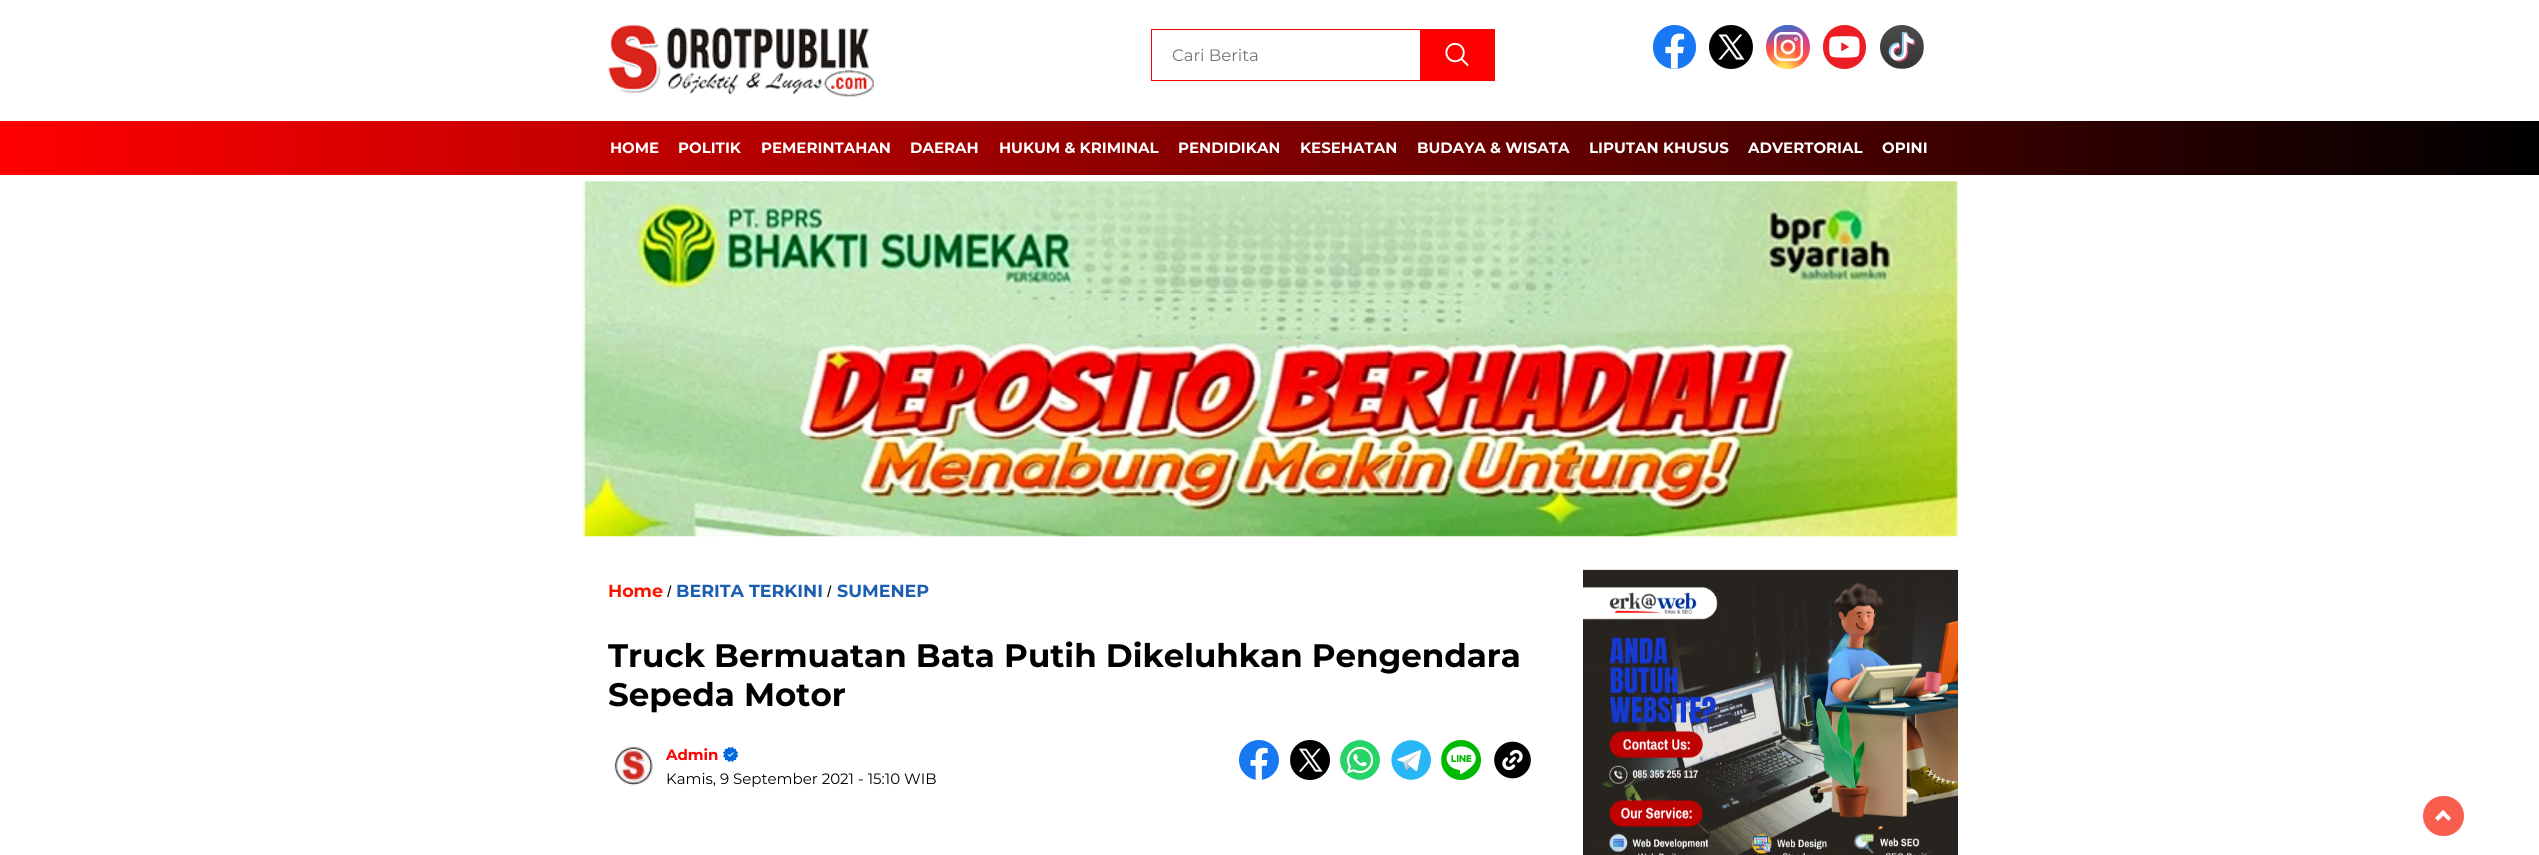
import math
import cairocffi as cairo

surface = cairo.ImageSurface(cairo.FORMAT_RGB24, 2539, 855)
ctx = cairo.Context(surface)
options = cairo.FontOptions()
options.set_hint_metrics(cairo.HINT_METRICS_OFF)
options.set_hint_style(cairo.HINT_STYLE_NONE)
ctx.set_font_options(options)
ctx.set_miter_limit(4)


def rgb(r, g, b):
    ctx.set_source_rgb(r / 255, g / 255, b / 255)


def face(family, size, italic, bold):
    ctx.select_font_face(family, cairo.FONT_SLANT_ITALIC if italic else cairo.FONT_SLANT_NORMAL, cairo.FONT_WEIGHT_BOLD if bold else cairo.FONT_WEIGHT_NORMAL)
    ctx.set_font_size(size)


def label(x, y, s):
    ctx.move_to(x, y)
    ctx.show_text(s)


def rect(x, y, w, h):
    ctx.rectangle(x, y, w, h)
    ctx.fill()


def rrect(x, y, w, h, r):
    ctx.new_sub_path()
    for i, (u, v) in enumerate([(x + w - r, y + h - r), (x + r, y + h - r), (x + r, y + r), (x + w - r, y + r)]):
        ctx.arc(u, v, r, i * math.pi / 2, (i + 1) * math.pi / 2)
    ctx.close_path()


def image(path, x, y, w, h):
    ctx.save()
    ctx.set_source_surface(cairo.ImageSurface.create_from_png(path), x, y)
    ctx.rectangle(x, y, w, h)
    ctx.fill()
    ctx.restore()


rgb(255, 255, 255)
ctx.paint()
image('image0.png', 608, 24, 266, 73)
ctx.rectangle(1151.5, 29.5, 269, 51)
rgb(255, 0, 0)
ctx.set_line_width(1)
ctx.stroke()
face('Montserrat', 16.5, 0, 0)
rgb(117, 117, 117)
label(1172, 61, 'Cari Berita')
rgb(255, 0, 0)
rect(1421, 29, 74, 52)
image('image1.png', 1445, 42, 24, 25)
image('image2.png', 1653, 25, 43, 44)
image('image3.png', 1709, 25, 44, 44)
gradient = cairo.RadialGradient(1784, 69, 0, 1784, 69, 44)
gradient.add_color_stop_rgba(0.1, 1, 0.867, 0.333, 1)
gradient.add_color_stop_rgba(0.5, 1, 0.329, 0.243, 1)
gradient.add_color_stop_rgba(1, 0.784, 0.216, 0.671, 1)
ctx.set_source(gradient)
ctx.arc(1788, 47, 22, 0, 2 * math.pi)
ctx.fill()
gradient = cairo.LinearGradient(1766, 25, 1775, 69)
gradient.add_color_stop_rgba(0.1, 0.216, 0.443, 0.784, 1)
gradient.add_color_stop_rgba(0.5, 0.216, 0.443, 0.784, 0)
ctx.set_source(gradient)
ctx.arc(1788, 47, 22, 0, 2 * math.pi)
ctx.fill()
rrect(1775.25, 33.25, 26.5, 26.5, 6.75)
rgb(255, 255, 255)
ctx.set_line_width(2.5)
ctx.stroke()
ctx.arc(1788, 47, 6, 0, 2 * math.pi)
ctx.set_line_width(2.6)
ctx.stroke()
ctx.arc(1795.9, 39.1, 0.5, 0, 2 * math.pi)
ctx.stroke()
image('image4.png', 1823, 25, 43, 44)
image('image5.png', 1880, 25, 44, 44)
gradient = cairo.LinearGradient(0, 148, 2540, 148)
gradient.add_color_stop_rgba(0, 1, 0, 0, 1)
gradient.add_color_stop_rgba(1, 0, 0, 0, 1)
ctx.set_source(gradient)
rect(0, 121, 2539, 54)
face('Montserrat', 15, 0, 1)
rgb(255, 255, 255)
label(610, 153, 'HOME')
label(678, 153, 'POLITIK')
label(761, 153, 'PEMERINTAHAN')
label(910, 153, 'DAERAH')
label(999, 153, 'HUKUM & KRIMINAL')
label(1178, 153, 'PENDIDIKAN')
label(1300, 153, 'KESEHATAN')
label(1417, 153, 'BUDAYA & WISATA')
label(1589, 153, 'LIPUTAN KHUSUS')
label(1748, 153, 'ADVERTORIAL')
label(1882, 153, 'OPINI')
image('image6.png', 582, 181, 1376, 356)
face('Montserrat', 17.5, 0, 1)
rgb(245, 23, 0)
label(608, 597, 'Home')
face('Liberation Sans', 16, 0, 0)
rgb(0, 0, 0)
label(667, 597, '/')
face('Montserrat', 17.5, 0, 1)
rgb(27, 93, 175)
label(676, 597, 'BERITA TERKINI')
face('Liberation Sans', 16, 0, 0)
rgb(0, 0, 0)
label(827, 597, '/')
face('Montserrat', 17.5, 0, 1)
rgb(27, 93, 175)
label(837, 597, 'SUMENEP')
face('Montserrat', 32.5, 0, 1)
rgb(0, 0, 0)
label(608, 667, 'Truck Bermuatan Bata Putih Dikeluhkan Pengendara')
label(608, 706, 'Sepeda Motor')
image('image7.png', 614, 747, 40, 39)
face('Montserrat', 15, 0, 1)
rgb(255, 0, 0)
label(666, 760, 'Admin')
image('image8.png', 723, 747, 15, 15)
face('Montserrat', 15, 0, 0)
rgb(0, 0, 0)
label(666, 784, 'Kamis, 9 September 2021 - 15:10 WIB')
image('image9.png', 1239, 740, 40, 40)
image('image10.png', 1290, 740, 40, 40)
image('image11.png', 1340, 740, 40, 40)
image('image12.png', 1391, 740, 40, 40)
image('image13.png', 1441, 740, 40, 40)
image('image14.png', 1494, 741, 37, 38)
image('image15.png', 1583, 569, 375, 286)
rgb(248, 93, 77)
rrect(2423, 796, 41, 40, 20)
ctx.fill()
rgb(255, 255, 255)
ctx.new_path()
ctx.move_to(2438, 821)
ctx.line_to(2435, 818)
ctx.line_to(2443, 810)
ctx.line_to(2446, 813)
ctx.close_path()
ctx.fill()
ctx.new_path()
ctx.move_to(2448.5, 821)
ctx.line_to(2440.5, 813)
ctx.line_to(2443, 810)
ctx.line_to(2451, 818)
ctx.close_path()
ctx.fill()
surface.write_to_png('render.png')
